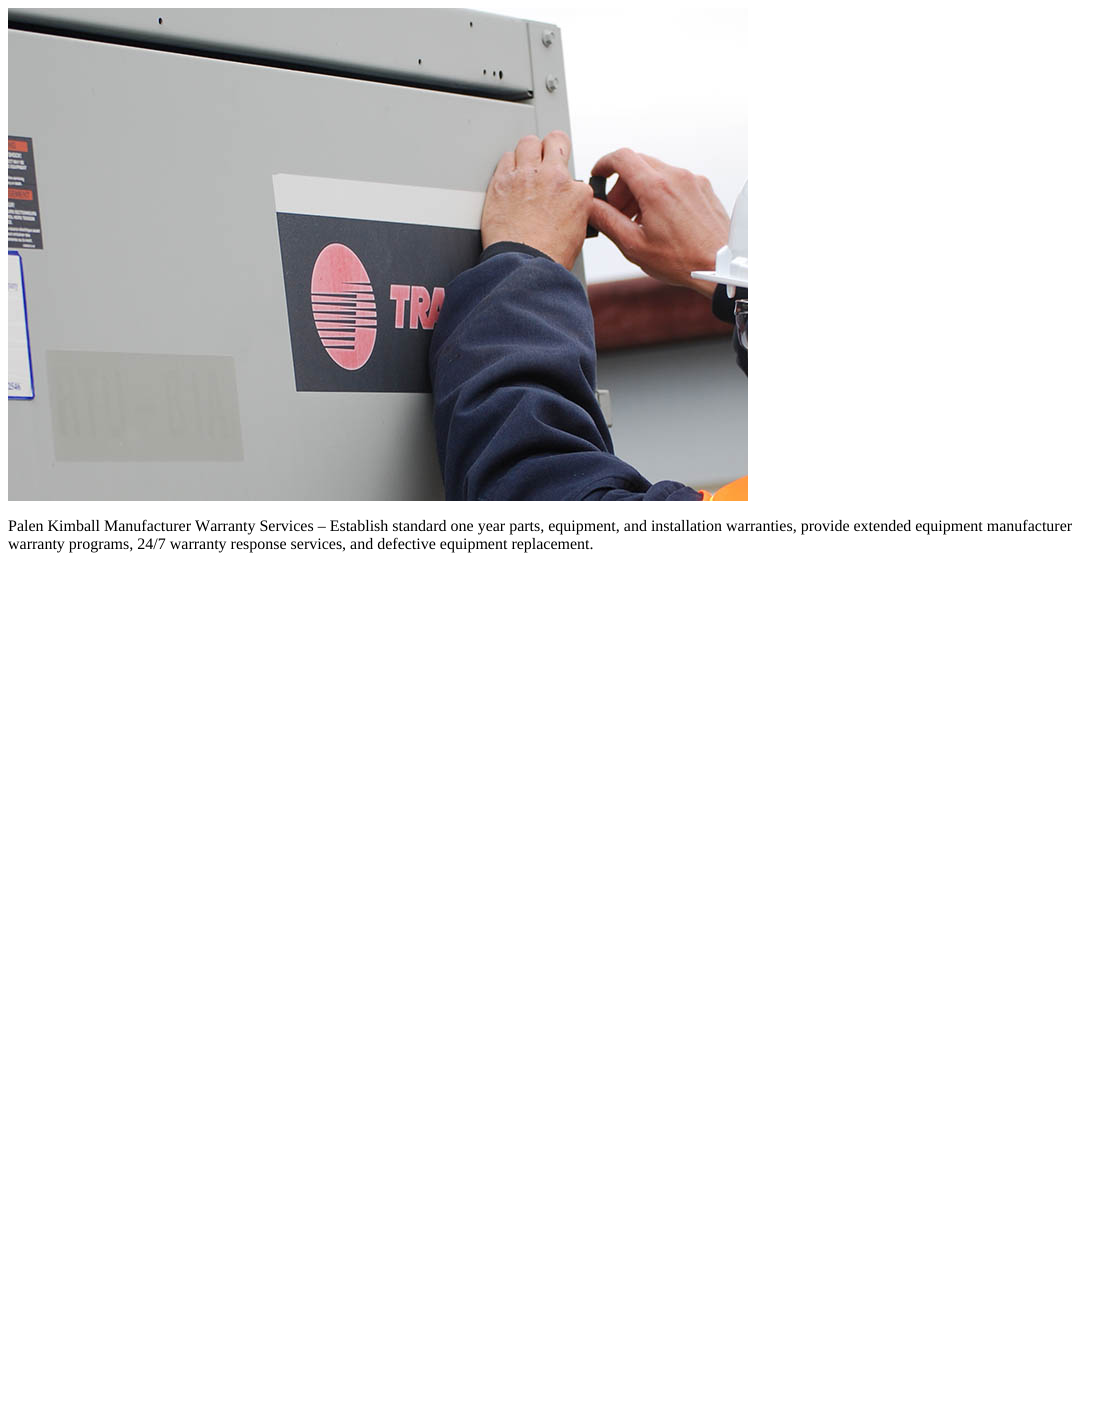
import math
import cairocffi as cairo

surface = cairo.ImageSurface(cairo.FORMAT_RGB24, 1094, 1401)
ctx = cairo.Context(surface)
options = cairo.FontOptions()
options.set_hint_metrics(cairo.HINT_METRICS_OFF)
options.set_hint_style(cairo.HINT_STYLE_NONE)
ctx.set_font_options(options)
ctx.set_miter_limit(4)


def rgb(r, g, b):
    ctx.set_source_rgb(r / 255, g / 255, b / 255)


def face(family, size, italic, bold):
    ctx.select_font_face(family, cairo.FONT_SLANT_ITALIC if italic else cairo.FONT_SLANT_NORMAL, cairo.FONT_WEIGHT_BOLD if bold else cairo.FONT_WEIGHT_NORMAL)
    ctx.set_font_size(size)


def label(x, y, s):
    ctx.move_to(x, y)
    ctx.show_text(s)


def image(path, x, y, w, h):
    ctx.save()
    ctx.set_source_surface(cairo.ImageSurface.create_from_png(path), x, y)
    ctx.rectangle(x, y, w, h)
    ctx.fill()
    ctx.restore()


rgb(255, 255, 255)
ctx.paint()
image('image0.png', 8, 8, 740, 493)
face('Liberation Serif', 16, 0, 0)
rgb(0, 0, 0)
label(8, 531, 'Palen Kimball Manufacturer Warranty Services – Establish standard one year parts, equipment, and installation warranties, provide extended equipment manufacturer')
label(8, 549, 'warranty programs, 24/7 warranty response services, and defective equipment replacement.')
surface.write_to_png('render.png')
